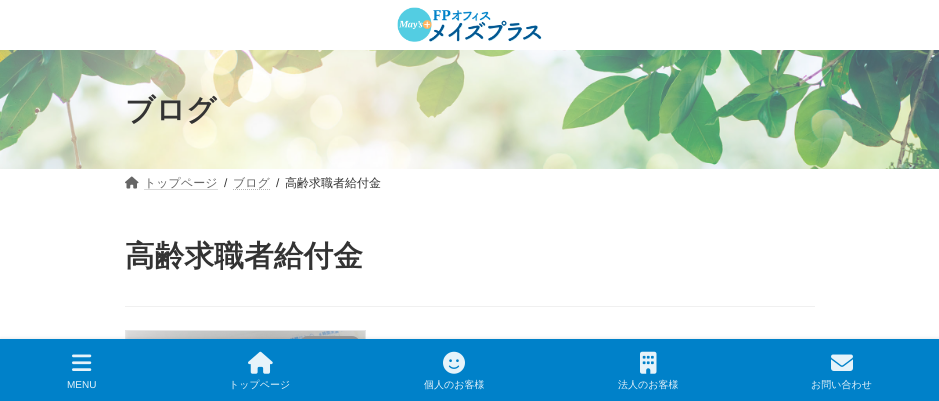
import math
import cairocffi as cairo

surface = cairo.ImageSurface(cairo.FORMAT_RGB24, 939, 401)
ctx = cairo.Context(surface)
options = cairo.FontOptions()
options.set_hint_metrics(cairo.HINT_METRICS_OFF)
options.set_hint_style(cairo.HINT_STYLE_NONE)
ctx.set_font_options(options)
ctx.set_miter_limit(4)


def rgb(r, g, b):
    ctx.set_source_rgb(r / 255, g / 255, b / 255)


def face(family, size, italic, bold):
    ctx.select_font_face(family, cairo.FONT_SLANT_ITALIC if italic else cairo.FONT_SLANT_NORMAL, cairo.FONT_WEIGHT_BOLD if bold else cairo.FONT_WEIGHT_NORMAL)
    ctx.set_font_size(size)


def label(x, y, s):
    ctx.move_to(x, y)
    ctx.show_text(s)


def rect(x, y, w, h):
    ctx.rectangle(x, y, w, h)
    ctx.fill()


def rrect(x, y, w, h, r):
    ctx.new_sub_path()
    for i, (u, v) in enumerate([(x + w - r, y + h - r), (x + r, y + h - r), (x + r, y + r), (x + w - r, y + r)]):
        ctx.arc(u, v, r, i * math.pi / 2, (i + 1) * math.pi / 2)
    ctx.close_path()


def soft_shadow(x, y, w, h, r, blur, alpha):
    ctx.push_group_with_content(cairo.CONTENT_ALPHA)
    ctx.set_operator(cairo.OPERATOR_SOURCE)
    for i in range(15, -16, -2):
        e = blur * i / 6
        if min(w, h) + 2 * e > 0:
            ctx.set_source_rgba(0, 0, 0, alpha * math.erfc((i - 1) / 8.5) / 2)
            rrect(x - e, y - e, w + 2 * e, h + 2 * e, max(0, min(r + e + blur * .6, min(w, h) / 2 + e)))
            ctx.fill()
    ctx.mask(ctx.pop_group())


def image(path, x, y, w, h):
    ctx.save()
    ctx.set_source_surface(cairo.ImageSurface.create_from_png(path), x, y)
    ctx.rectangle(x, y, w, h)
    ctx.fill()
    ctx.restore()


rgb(255, 255, 255)
ctx.paint()
image('image0.png', 397, 7, 145, 35)
image('image1.png', 0, 50, 939, 119)
face('WenQuanYi Zen Hei', 29.75, 0, 1)
rgb(51, 51, 51)
label(125, 120, 'ブログ')
image('image2.png', 125, 176, 14, 13)
face('WenQuanYi Zen Hei Medium', 12, 0, 0)
rgb(102, 102, 102)
label(144, 187, 'トップページ')
ctx.new_path()
ctx.move_to(144.5, 189.5)
ctx.line_to(217.5, 189.5)
rgb(179, 179, 179)
ctx.set_line_width(1)
ctx.set_dash([1, 1])
ctx.stroke()
face('Liberation Sans', 12, 0, 0)
rgb(51, 51, 51)
label(224, 187, '/')
face('WenQuanYi Zen Hei Medium', 12, 0, 0)
rgb(102, 102, 102)
label(233, 187, 'ブログ')
ctx.new_path()
ctx.move_to(233, 189.5)
ctx.line_to(270, 189.5)
rgb(179, 179, 179)
ctx.stroke()
face('Liberation Sans', 12, 0, 0)
rgb(51, 51, 51)
label(276, 187, '/')
face('WenQuanYi Zen Hei Medium', 12, 0, 0)
label(285, 187, '高齢求職者給付金')
face('WenQuanYi Zen Hei', 29.75, 0, 1)
label(125, 266, '高齢求職者給付金')
rgb(240, 240, 240)
rect(125, 306, 690, 1)
image('image3.png', 126, 331, 239, 8)
ctx.rectangle(125.5, 330.5, 240, 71)
rgb(229, 229, 229)
ctx.set_dash([])
ctx.stroke()
rgb(153, 153, 153)
rrect(300, 336, 60, 16, 8)
ctx.fill()
rgb(0, 0, 0)
soft_shadow(0, 339, 939, 62, 0, 2.5, 0.12)
rgb(0, 129, 201)
rect(0, 339, 939, 62)
image('image4.png', 72, 354, 20, 17)
face('Liberation Sans', 10, 0, 0)
rgb(230, 242, 250)
label(67, 388, 'MENU')
image('image5.png', 248, 351, 25, 23)
face('WenQuanYi Zen Hei Medium', 10, 0, 0)
label(229, 388, 'トップページ')
image('image6.png', 443, 351, 22, 23)
label(424, 388, '個人のお客様')
image('image7.png', 640, 351, 17, 23)
label(618, 388, '法人のお客様')
image('image8.png', 831, 354, 22, 17)
label(811, 388, 'お問い合わせ')
surface.write_to_png('render.png')
